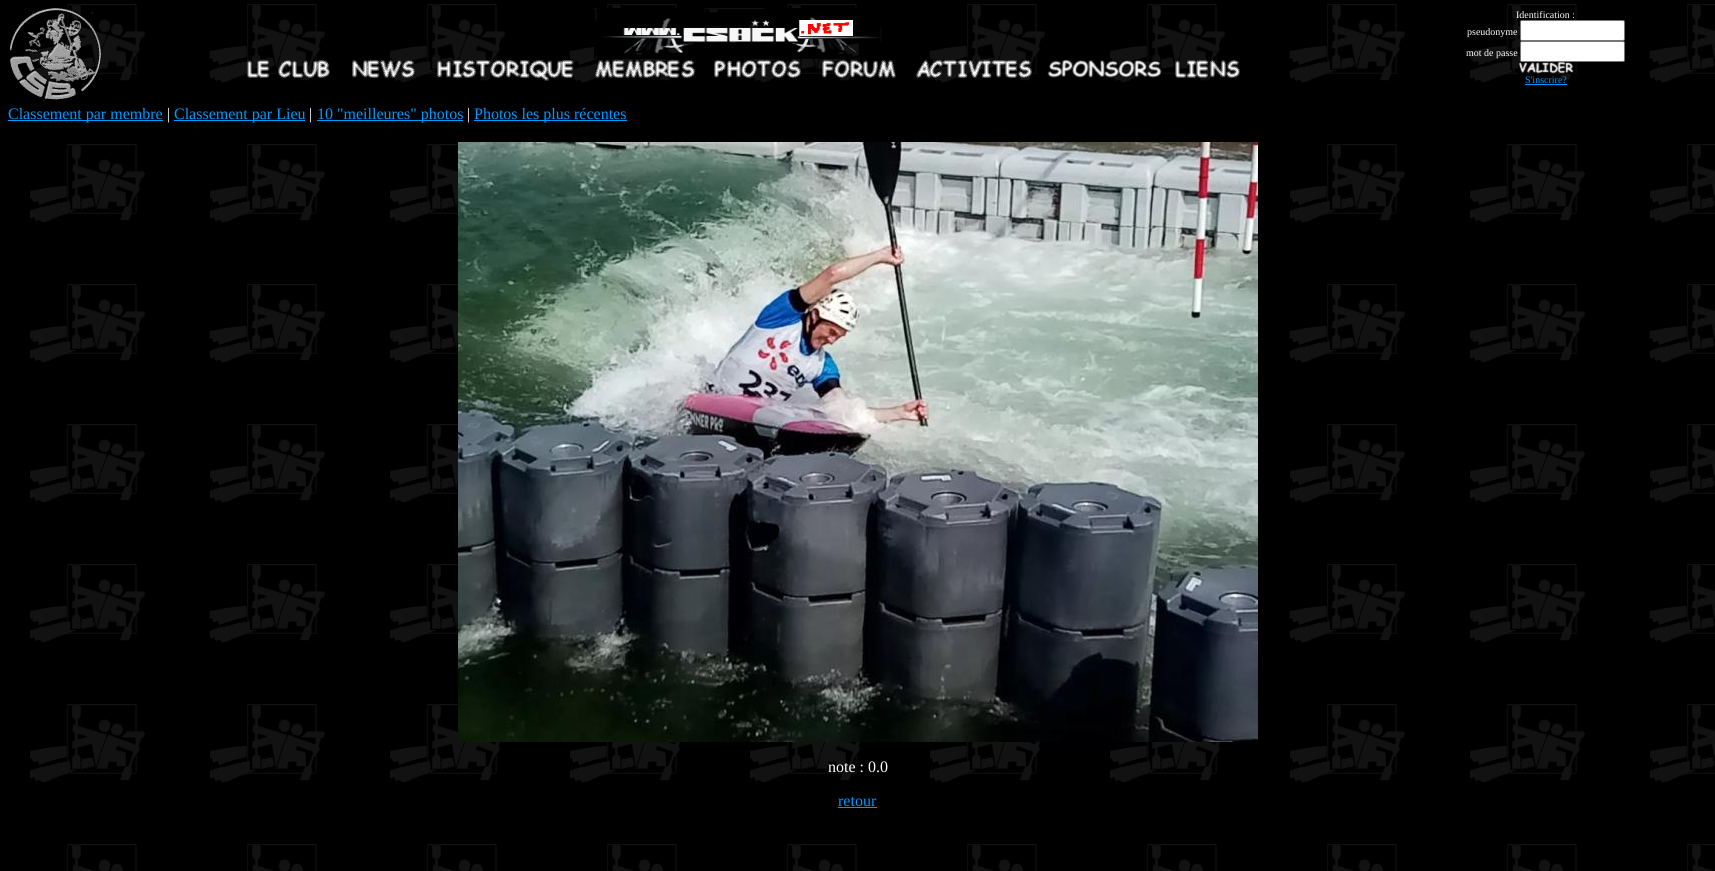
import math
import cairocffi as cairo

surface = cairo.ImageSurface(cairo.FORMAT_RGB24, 1715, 871)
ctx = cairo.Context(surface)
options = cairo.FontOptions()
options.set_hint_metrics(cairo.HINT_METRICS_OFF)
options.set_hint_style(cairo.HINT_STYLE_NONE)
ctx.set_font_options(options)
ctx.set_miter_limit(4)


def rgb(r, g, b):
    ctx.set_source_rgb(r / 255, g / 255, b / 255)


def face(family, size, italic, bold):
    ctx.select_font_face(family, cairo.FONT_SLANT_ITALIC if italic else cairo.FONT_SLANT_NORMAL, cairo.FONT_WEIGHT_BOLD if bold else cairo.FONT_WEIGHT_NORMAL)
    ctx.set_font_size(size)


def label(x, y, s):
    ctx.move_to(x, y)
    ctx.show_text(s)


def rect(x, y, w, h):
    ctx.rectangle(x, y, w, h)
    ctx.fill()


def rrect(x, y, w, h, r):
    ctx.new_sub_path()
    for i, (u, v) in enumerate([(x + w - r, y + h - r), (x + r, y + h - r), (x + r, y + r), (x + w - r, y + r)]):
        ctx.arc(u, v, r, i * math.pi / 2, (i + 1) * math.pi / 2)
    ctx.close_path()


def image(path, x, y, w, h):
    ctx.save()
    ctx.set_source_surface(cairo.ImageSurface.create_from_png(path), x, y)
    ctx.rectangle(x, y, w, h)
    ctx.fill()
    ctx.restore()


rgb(0, 0, 0)
ctx.paint()
image('image0.png', 30, 4, 1685, 867)
image('image1.png', 9, 8, 93, 93)
image('image2.png', 594, 8, 288, 51)
image('image3.png', 247, 60, 83, 18)
image('image4.png', 352, 60, 63, 18)
image('image5.png', 437, 60, 137, 21)
image('image6.png', 595, 59, 100, 19)
image('image7.png', 714, 59, 87, 19)
image('image8.png', 821, 59, 75, 19)
image('image9.png', 916, 59, 116, 19)
image('image10.png', 1047, 60, 115, 18)
image('image11.png', 1175, 59, 65, 19)
face('Liberation Serif', 10, 0, 0)
rgb(255, 255, 255)
label(1516, 18, 'Identification :')
label(1467, 35, 'pseudonyme')
rrect(1520.5, 20.5, 104, 20, 1.5)
ctx.fill_preserve()
rgb(118, 118, 118)
ctx.set_line_width(1)
ctx.stroke()
rgb(255, 255, 255)
label(1466, 56, 'mot de passe')
rrect(1520.5, 41.5, 104, 20, 1.5)
ctx.fill_preserve()
rgb(118, 118, 118)
ctx.stroke()
image('image12.png', 1518, 62, 56, 12)
rgb(0, 153, 255)
label(1525, 83, 'S\'inscrire?')
rect(1525, 84, 42, 1)
rect(8, 120, 155, 1)
face('Liberation Serif', 16, 0, 0)
label(8, 119, 'Classement par membre')
rgb(255, 255, 255)
label(167, 119, '|')
rgb(0, 153, 255)
rect(174, 120, 131, 1)
label(174, 119, 'Classement par Lieu')
rgb(255, 255, 255)
label(309, 119, '|')
rgb(0, 153, 255)
rect(317, 120, 146, 1)
label(317, 119, '10 "meilleures" photos')
rgb(255, 255, 255)
label(467, 119, '|')
rgb(0, 153, 255)
rect(474, 120, 153, 1)
label(474, 119, 'Photos les plus récentes')
image('image13.png', 458, 142, 800, 600)
rgb(255, 255, 255)
label(828, 772, 'note : 0.0')
rgb(0, 153, 255)
label(838, 806, 'retour')
rect(838, 807, 39, 1)
surface.write_to_png('render.png')
